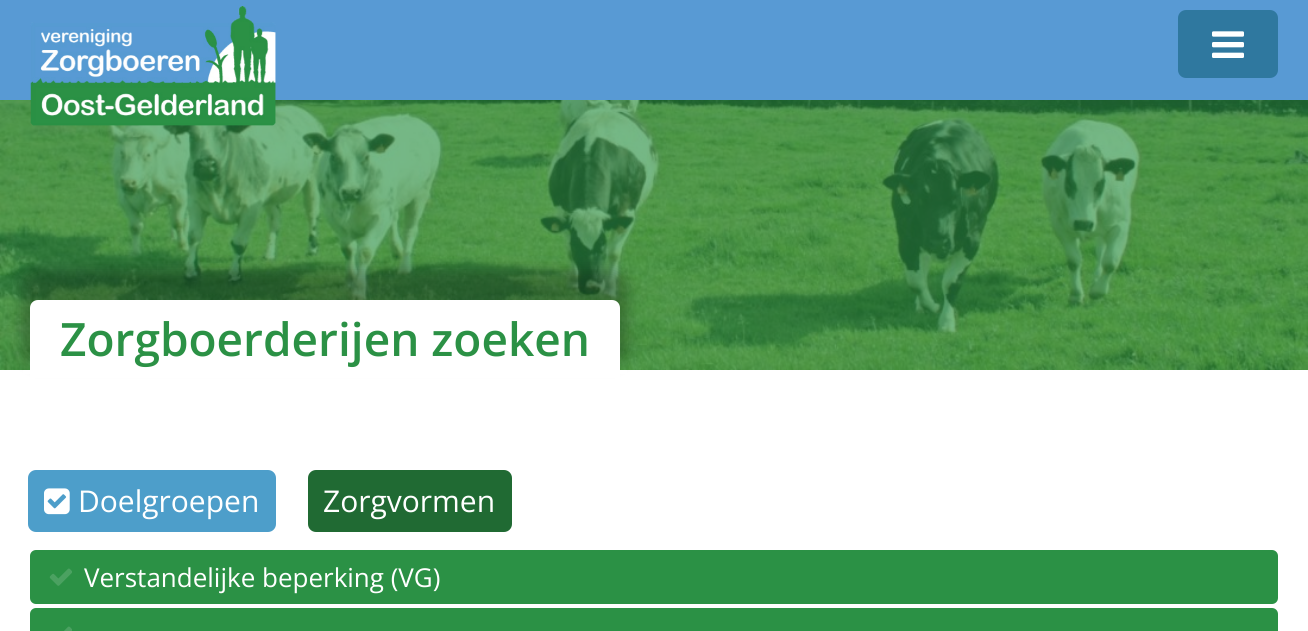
import math
import cairocffi as cairo

surface = cairo.ImageSurface(cairo.FORMAT_RGB24, 1308, 631)
ctx = cairo.Context(surface)
options = cairo.FontOptions()
options.set_hint_metrics(cairo.HINT_METRICS_OFF)
options.set_hint_style(cairo.HINT_STYLE_NONE)
ctx.set_font_options(options)
ctx.set_miter_limit(4)


def rgb(r, g, b):
    ctx.set_source_rgb(r / 255, g / 255, b / 255)


def face(family, size, italic, bold):
    ctx.select_font_face(family, cairo.FONT_SLANT_ITALIC if italic else cairo.FONT_SLANT_NORMAL, cairo.FONT_WEIGHT_BOLD if bold else cairo.FONT_WEIGHT_NORMAL)
    ctx.set_font_size(size)


def label(x, y, s):
    ctx.move_to(x, y)
    ctx.show_text(s)


def rect(x, y, w, h):
    ctx.rectangle(x, y, w, h)
    ctx.fill()


def rrect(x, y, w, h, r):
    ctx.new_sub_path()
    for i, (u, v) in enumerate([(x + w - r, y + h - r), (x + r, y + h - r), (x + r, y + r), (x + w - r, y + r)]):
        ctx.arc(u, v, r, i * math.pi / 2, (i + 1) * math.pi / 2)
    ctx.close_path()


def soft_shadow(x, y, w, h, r, blur, alpha):
    ctx.push_group_with_content(cairo.CONTENT_ALPHA)
    ctx.set_operator(cairo.OPERATOR_SOURCE)
    for i in range(15, -16, -2):
        e = blur * i / 6
        if min(w, h) + 2 * e > 0:
            ctx.set_source_rgba(0, 0, 0, alpha * math.erfc((i - 1) / 8.5) / 2)
            rrect(x - e, y - e, w + 2 * e, h + 2 * e, max(0, min(r + e + blur * .6, min(w, h) / 2 + e)))
            ctx.fill()
    ctx.mask(ctx.pop_group())


def image(path, x, y, w, h):
    ctx.save()
    ctx.set_source_surface(cairo.ImageSurface.create_from_png(path), x, y)
    ctx.rectangle(x, y, w, h)
    ctx.fill()
    ctx.restore()


rgb(255, 255, 255)
ctx.paint()
rgb(88, 154, 212)
rect(0, 0, 1308, 100)
image('image2.png', 0, 100, 1308, 270)
image('image0.png', 30, 6, 246, 120)
rgb(47, 120, 159)
rrect(1179, 11, 98, 66, 7)
ctx.fill_preserve()
ctx.stroke()
image('image1.png', 1212, 31, 32, 27)
rgb(0, 0, 0)
soft_shadow(22, 270, 606, 94, 16, 7, 0.25)
rgb(255, 255, 255)
ctx.new_path()
ctx.move_to(38, 300)
ctx.line_to(612, 300)
ctx.curve_to(616.5, 300, 620, 303.5, 620, 308)
ctx.line_to(620, 378)
ctx.line_to(30, 378)
ctx.line_to(30, 308)
ctx.curve_to(30, 303.5, 33.5, 300, 38, 300)
ctx.close_path()
ctx.fill()
face('Open Sans SemiBold', 46, 0, 0)
rgb(43, 145, 69)
label(60, 356, 'Zorgboerderijen zoeken')
rgb(255, 255, 255)
rect(23, 370, 604, 4)
rgb(77, 158, 202)
rrect(28, 470, 248, 62, 8)
ctx.fill()
image('image3.png', 44, 488, 26, 27)
face('Open Sans', 30, 0, 0)
rgb(255, 255, 255)
label(78, 512, 'Doelgroepen')
rgb(32, 106, 51)
rrect(308, 470, 204, 62, 8)
ctx.fill()
rgb(255, 255, 255)
label(323, 512, 'Zorgvormen')
rgb(43, 145, 69)
rrect(30, 550, 1248, 54, 6)
ctx.fill()
image('image4.png', 49, 568, 23, 18)
face('Open Sans', 26, 0, 0)
rgb(255, 255, 255)
label(84, 587, 'Verstandelijke beperking (VG)')
rgb(43, 145, 69)
rrect(30, 608, 1248, 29, 6)
ctx.fill()
image('image5.png', 64, 626, 8, 5)
surface.write_to_png('render.png')
